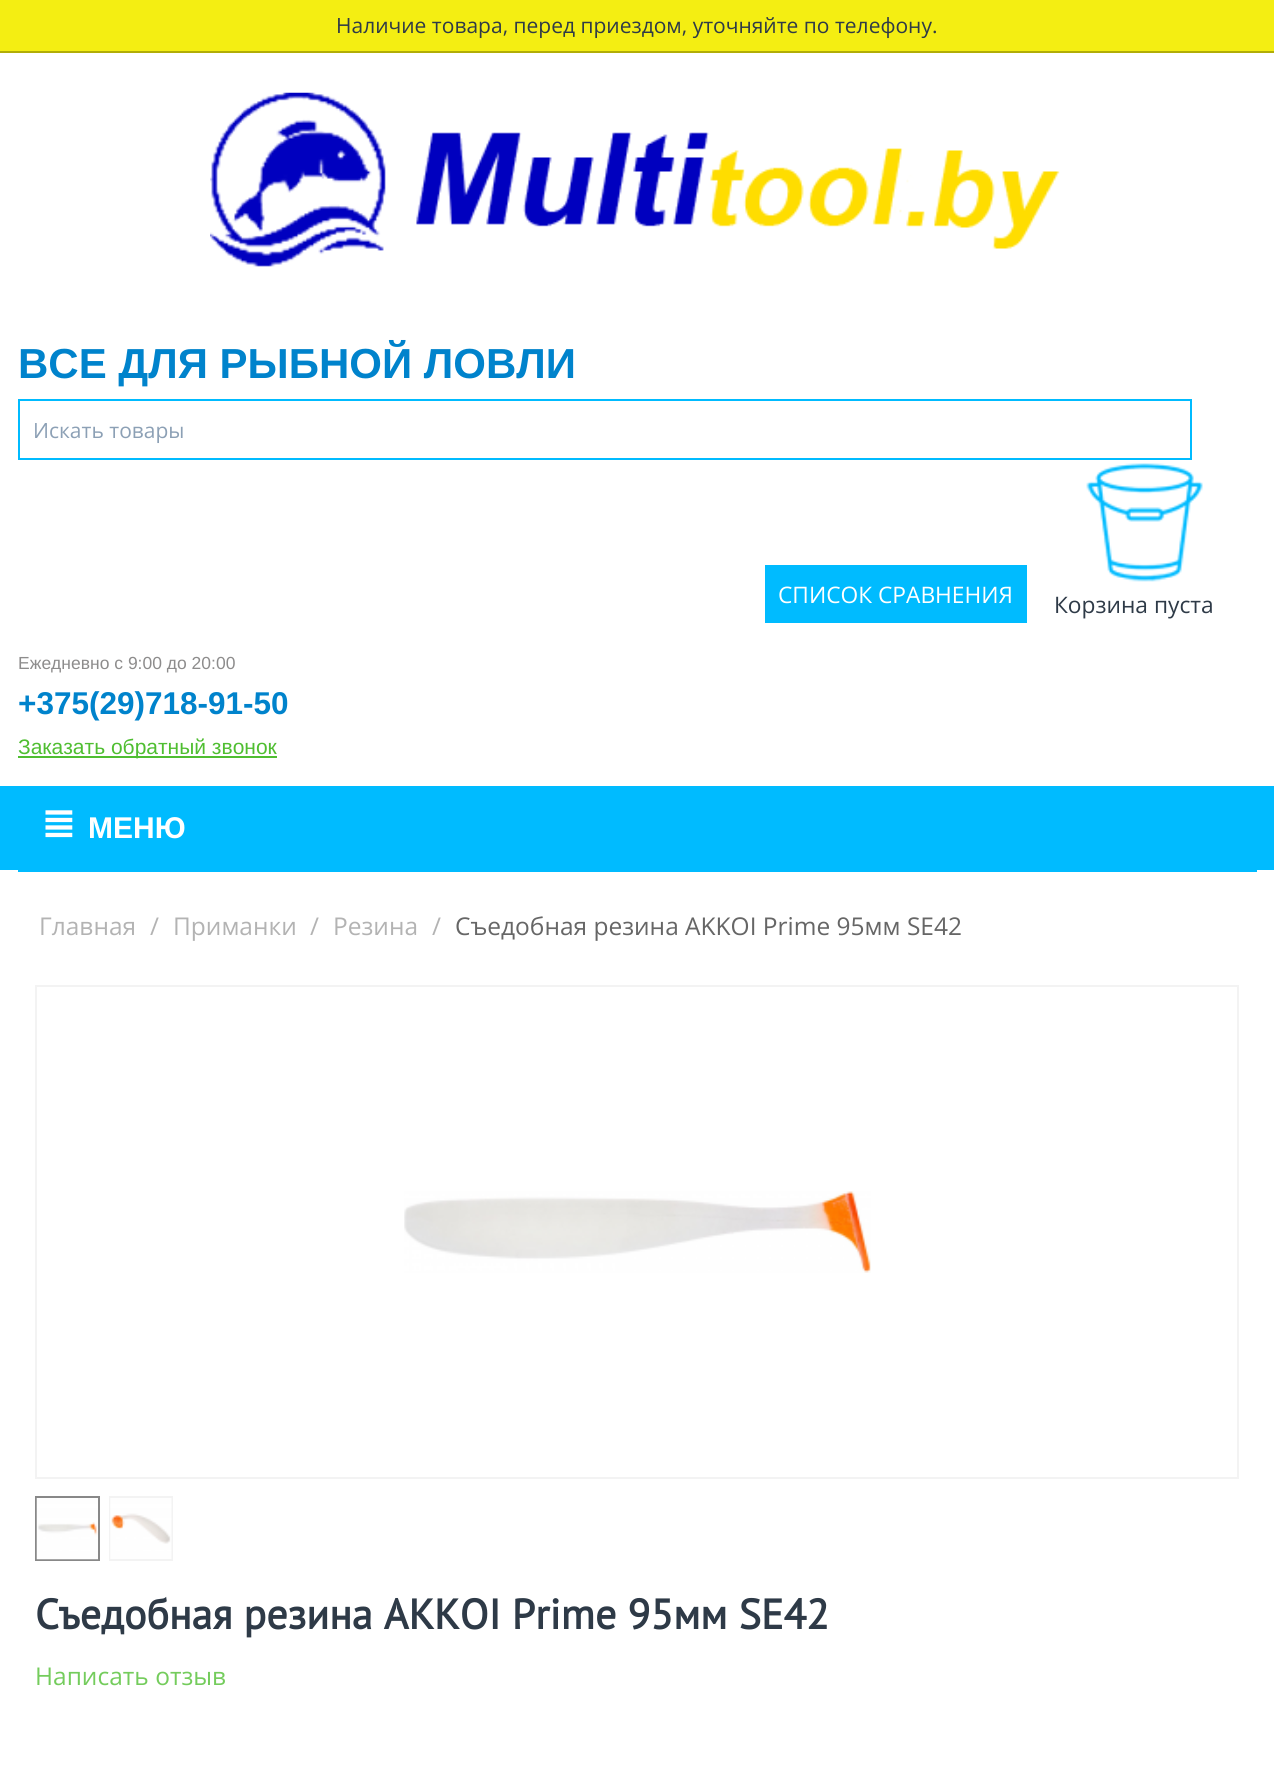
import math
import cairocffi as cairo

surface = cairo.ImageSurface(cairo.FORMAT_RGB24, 1274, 1780)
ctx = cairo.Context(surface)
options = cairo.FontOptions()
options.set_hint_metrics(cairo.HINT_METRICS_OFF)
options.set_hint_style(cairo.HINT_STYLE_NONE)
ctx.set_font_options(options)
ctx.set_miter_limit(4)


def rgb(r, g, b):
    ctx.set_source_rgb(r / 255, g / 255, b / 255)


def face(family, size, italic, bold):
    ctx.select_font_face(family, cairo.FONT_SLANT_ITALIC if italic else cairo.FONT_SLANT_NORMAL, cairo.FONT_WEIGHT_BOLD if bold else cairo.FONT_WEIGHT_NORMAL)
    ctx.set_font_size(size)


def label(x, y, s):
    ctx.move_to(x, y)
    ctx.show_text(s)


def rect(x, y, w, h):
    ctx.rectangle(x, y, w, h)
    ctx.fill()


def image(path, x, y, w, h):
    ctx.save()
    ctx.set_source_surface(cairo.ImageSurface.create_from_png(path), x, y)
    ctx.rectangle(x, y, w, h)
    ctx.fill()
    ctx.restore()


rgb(244, 238, 18)
ctx.paint()
rgb(177, 173, 8)
rect(0, 51, 1274, 2)
face('Open Sans', 21, 0, 0)
rgb(46, 58, 71)
label(336, 33, 'Наличие товара, перед приездом, уточняйте по телефону.')
rgb(255, 255, 255)
rect(0, 53, 1274, 1727)
image('image0.png', 210, 92, 850, 175)
face('Liberation Sans', 42, 0, 1)
rgb(0, 131, 204)
label(18, 378, 'ВСЕ ДЛЯ РЫБНОЙ ЛОВЛИ')
ctx.rectangle(19, 400, 1172, 59)
rgb(0, 187, 255)
ctx.stroke()
face('Open Sans', 21, 0, 0)
rgb(140, 160, 181)
label(33, 438, 'Искать товары')
rgb(0, 187, 255)
rect(765, 565, 262, 58)
face('Open Sans', 22.75, 0, 0)
rgb(255, 255, 255)
label(778, 603, 'СПИСОК СРАВНЕНИЯ')
image('image1.png', 1086, 463, 117, 119)
rgb(46, 58, 71)
label(1054, 613, 'Корзина пуста')
face('Liberation Sans', 17.5, 0, 0)
rgb(141, 140, 140)
label(18, 669, 'Ежедневно с 9:00 до 20:00')
face('Liberation Sans', 31.5, 0, 1)
rgb(0, 131, 204)
label(18, 714, '+375(29)718-91-50')
rgb(79, 190, 49)
rect(18, 756, 259, 2)
face('Liberation Sans', 21, 0, 0)
label(18, 754, 'Заказать обратный звонок')
rgb(0, 187, 255)
rect(0, 786, 1274, 84)
rect(18, 870, 1239, 2)
image('image2.png', 45, 810, 28, 28)
face('Liberation Sans', 30, 0, 1)
rgb(255, 255, 255)
label(88, 838, 'МЕНЮ')
face('Open Sans', 24.5, 0, 0)
rgb(179, 179, 179)
label(39, 935, 'Главная')
label(150, 935, '/')
label(173, 935, 'Приманки')
label(310, 935, '/')
label(333, 935, 'Резина')
label(432, 935, '/')
rgb(102, 102, 102)
label(455, 935, 'Съедобная резина AKKOI Prime 95мм SE42')
ctx.rectangle(36, 986, 1202, 492)
rgb(243, 243, 243)
ctx.stroke()
image('image3.png', 404, 1191, 467, 82)
ctx.rectangle(36, 1497, 63, 63)
rgb(136, 136, 136)
ctx.stroke()
image('image4.png', 36, 1498, 62, 62)
ctx.rectangle(110, 1497, 62, 63)
rgb(243, 243, 243)
ctx.stroke()
image('image5.png', 110, 1498, 62, 61)
face('PT Sans', 42, 0, 1)
rgb(46, 58, 71)
label(35, 1629, 'Съедобная резина AKKOI Prime 95мм SE42')
face('Open Sans', 24.5, 0, 0)
rgb(116, 204, 92)
label(35, 1685, 'Написать отзыв')
surface.write_to_png('render.png')
